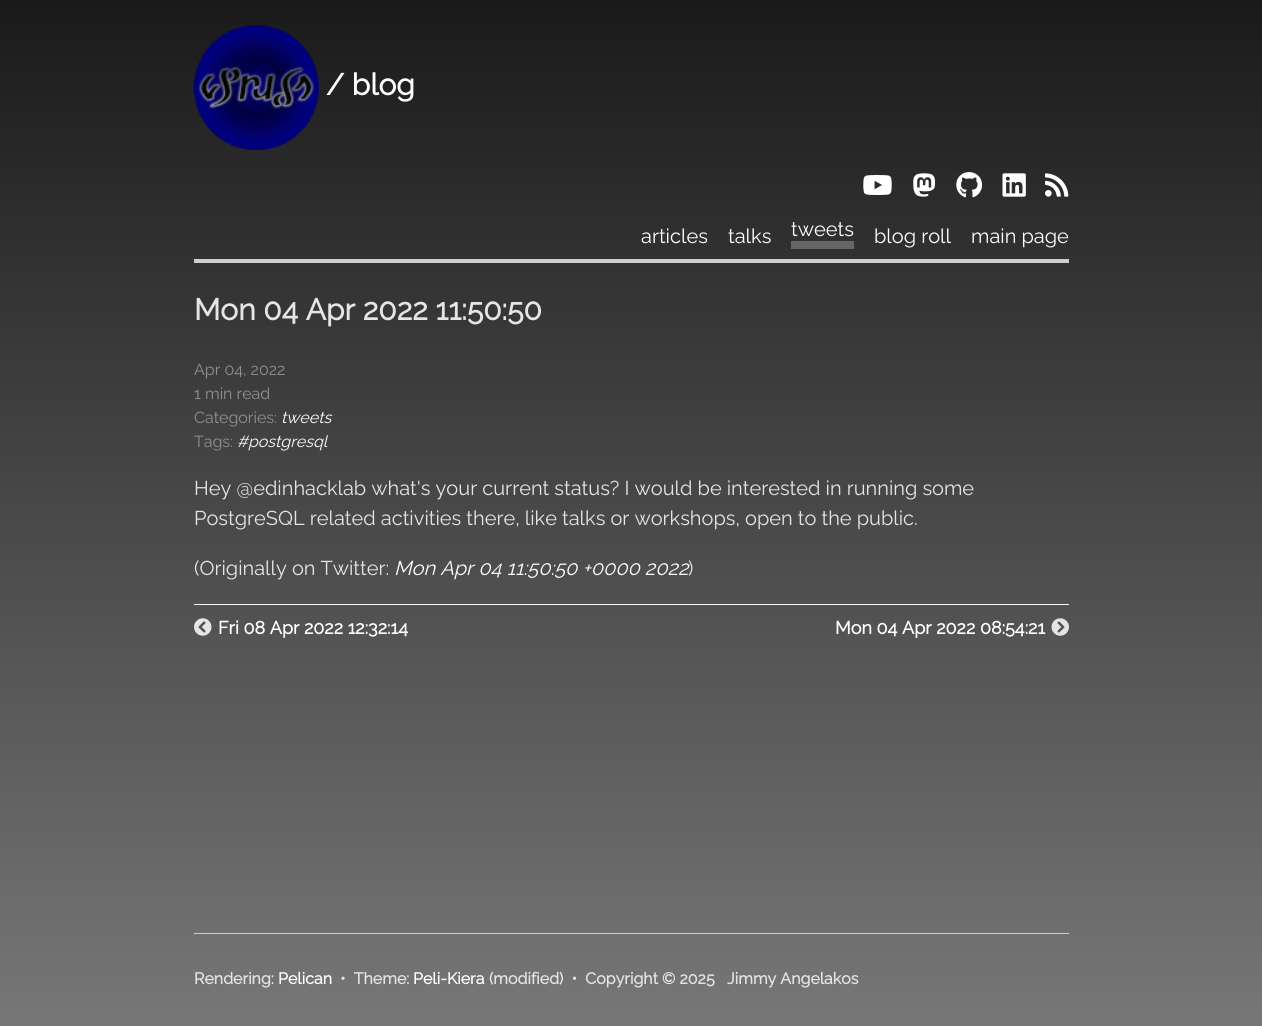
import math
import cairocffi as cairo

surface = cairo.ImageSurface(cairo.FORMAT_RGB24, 1262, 1026)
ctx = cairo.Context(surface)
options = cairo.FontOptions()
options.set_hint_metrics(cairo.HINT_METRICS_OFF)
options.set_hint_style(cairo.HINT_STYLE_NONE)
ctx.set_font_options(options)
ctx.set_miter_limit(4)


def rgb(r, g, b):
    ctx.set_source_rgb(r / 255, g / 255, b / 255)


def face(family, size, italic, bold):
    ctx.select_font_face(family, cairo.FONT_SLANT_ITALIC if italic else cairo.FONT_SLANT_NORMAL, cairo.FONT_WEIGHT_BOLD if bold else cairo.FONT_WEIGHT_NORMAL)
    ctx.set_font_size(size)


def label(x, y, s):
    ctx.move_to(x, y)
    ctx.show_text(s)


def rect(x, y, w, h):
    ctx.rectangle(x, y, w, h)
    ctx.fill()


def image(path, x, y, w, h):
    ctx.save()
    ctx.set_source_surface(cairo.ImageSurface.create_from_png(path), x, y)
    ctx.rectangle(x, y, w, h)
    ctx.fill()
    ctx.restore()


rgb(255, 255, 255)
ctx.paint()
gradient = cairo.LinearGradient(631, 0, 631, 1026)
gradient.add_color_stop_rgba(0, 0.102, 0.102, 0.102, 1)
gradient.add_color_stop_rgba(1, 0.467, 0.467, 0.467, 1)
ctx.set_source(gradient)
rect(0, 0, 1262, 1026)
image('image0.png', 193, 25, 126, 125)
face('Raleway', 30, 0, 1)
rgb(255, 255, 255)
label(326, 95, '/ blog')
image('image1.png', 863, 175, 29, 20)
image('image2.png', 913, 173, 23, 24)
image('image3.png', 956, 172, 27, 26)
image('image4.png', 1002, 173, 24, 24)
image('image5.png', 1045, 173, 24, 24)
rgb(206, 206, 206)
rect(194, 259, 875, 4)
face('Raleway Thin', 20, 0, 0)
rgb(255, 255, 255)
label(641, 243, 'articles')
label(728, 243, 'talks')
rgb(102, 102, 102)
rect(791, 241, 63, 8)
rgb(255, 255, 255)
label(791, 236, 'tweets')
label(874, 243, 'blog roll')
label(971, 243, 'main page')
face('Raleway', 30, 0, 1)
rgb(229, 229, 229)
label(194, 320, 'Mon 04 Apr 2022 11:50:50')
face('Raleway Thin', 16, 0, 0)
rgb(144, 144, 144)
label(194, 375, 'Apr 04, 2022')
label(194, 399, '1 min read')
label(194, 423, 'Categories:')
face('Raleway Thin', 16, 1, 0)
rgb(255, 255, 255)
label(281, 423, 'tweets')
face('Raleway Thin', 16, 0, 0)
rgb(144, 144, 144)
label(194, 447, 'Tags:')
face('Raleway Thin', 16, 1, 0)
rgb(255, 255, 255)
label(237, 447, '#postgresql')
face('Raleway Thin', 20, 0, 0)
rgb(229, 229, 229)
label(194, 495, 'Hey @edinhacklab what\'s your current status? I would be interested in running some')
label(194, 525, 'PostgreSQL related activities there, like talks or workshops, open to the public.')
label(194, 575, '(Originally on Twitter:')
face('Raleway Thin', 20, 1, 0)
rgb(255, 255, 255)
label(394, 575, 'Mon Apr 04 11:50:50 +0000 2022')
face('Raleway Thin', 20, 0, 0)
rgb(229, 229, 229)
label(688, 575, ')')
rgb(247, 247, 247)
rect(194, 604, 875, 1)
image('image6.png', 194, 618, 18, 18)
face('Raleway', 18, 0, 1)
rgb(255, 255, 255)
label(218, 634, 'Fri 08 Apr 2022 12:32:14')
label(835, 634, 'Mon 04 Apr 2022 08:54:21')
image('image7.png', 1051, 618, 18, 18)
rgb(206, 206, 206)
rect(194, 933, 875, 1)
face('Raleway', 16, 0, 1)
rgb(229, 229, 229)
label(194, 984, 'Rendering:')
rgb(255, 255, 255)
label(278, 984, 'Pelican')
rgb(229, 229, 229)
label(340, 984, '•  Theme:')
rgb(255, 255, 255)
label(413, 984, 'Peli-Kiera')
rgb(229, 229, 229)
label(489, 984, '(modified)  •  Copyright © 2025')
label(727, 984, 'Jimmy Angelakos')
surface.write_to_png('render.png')
